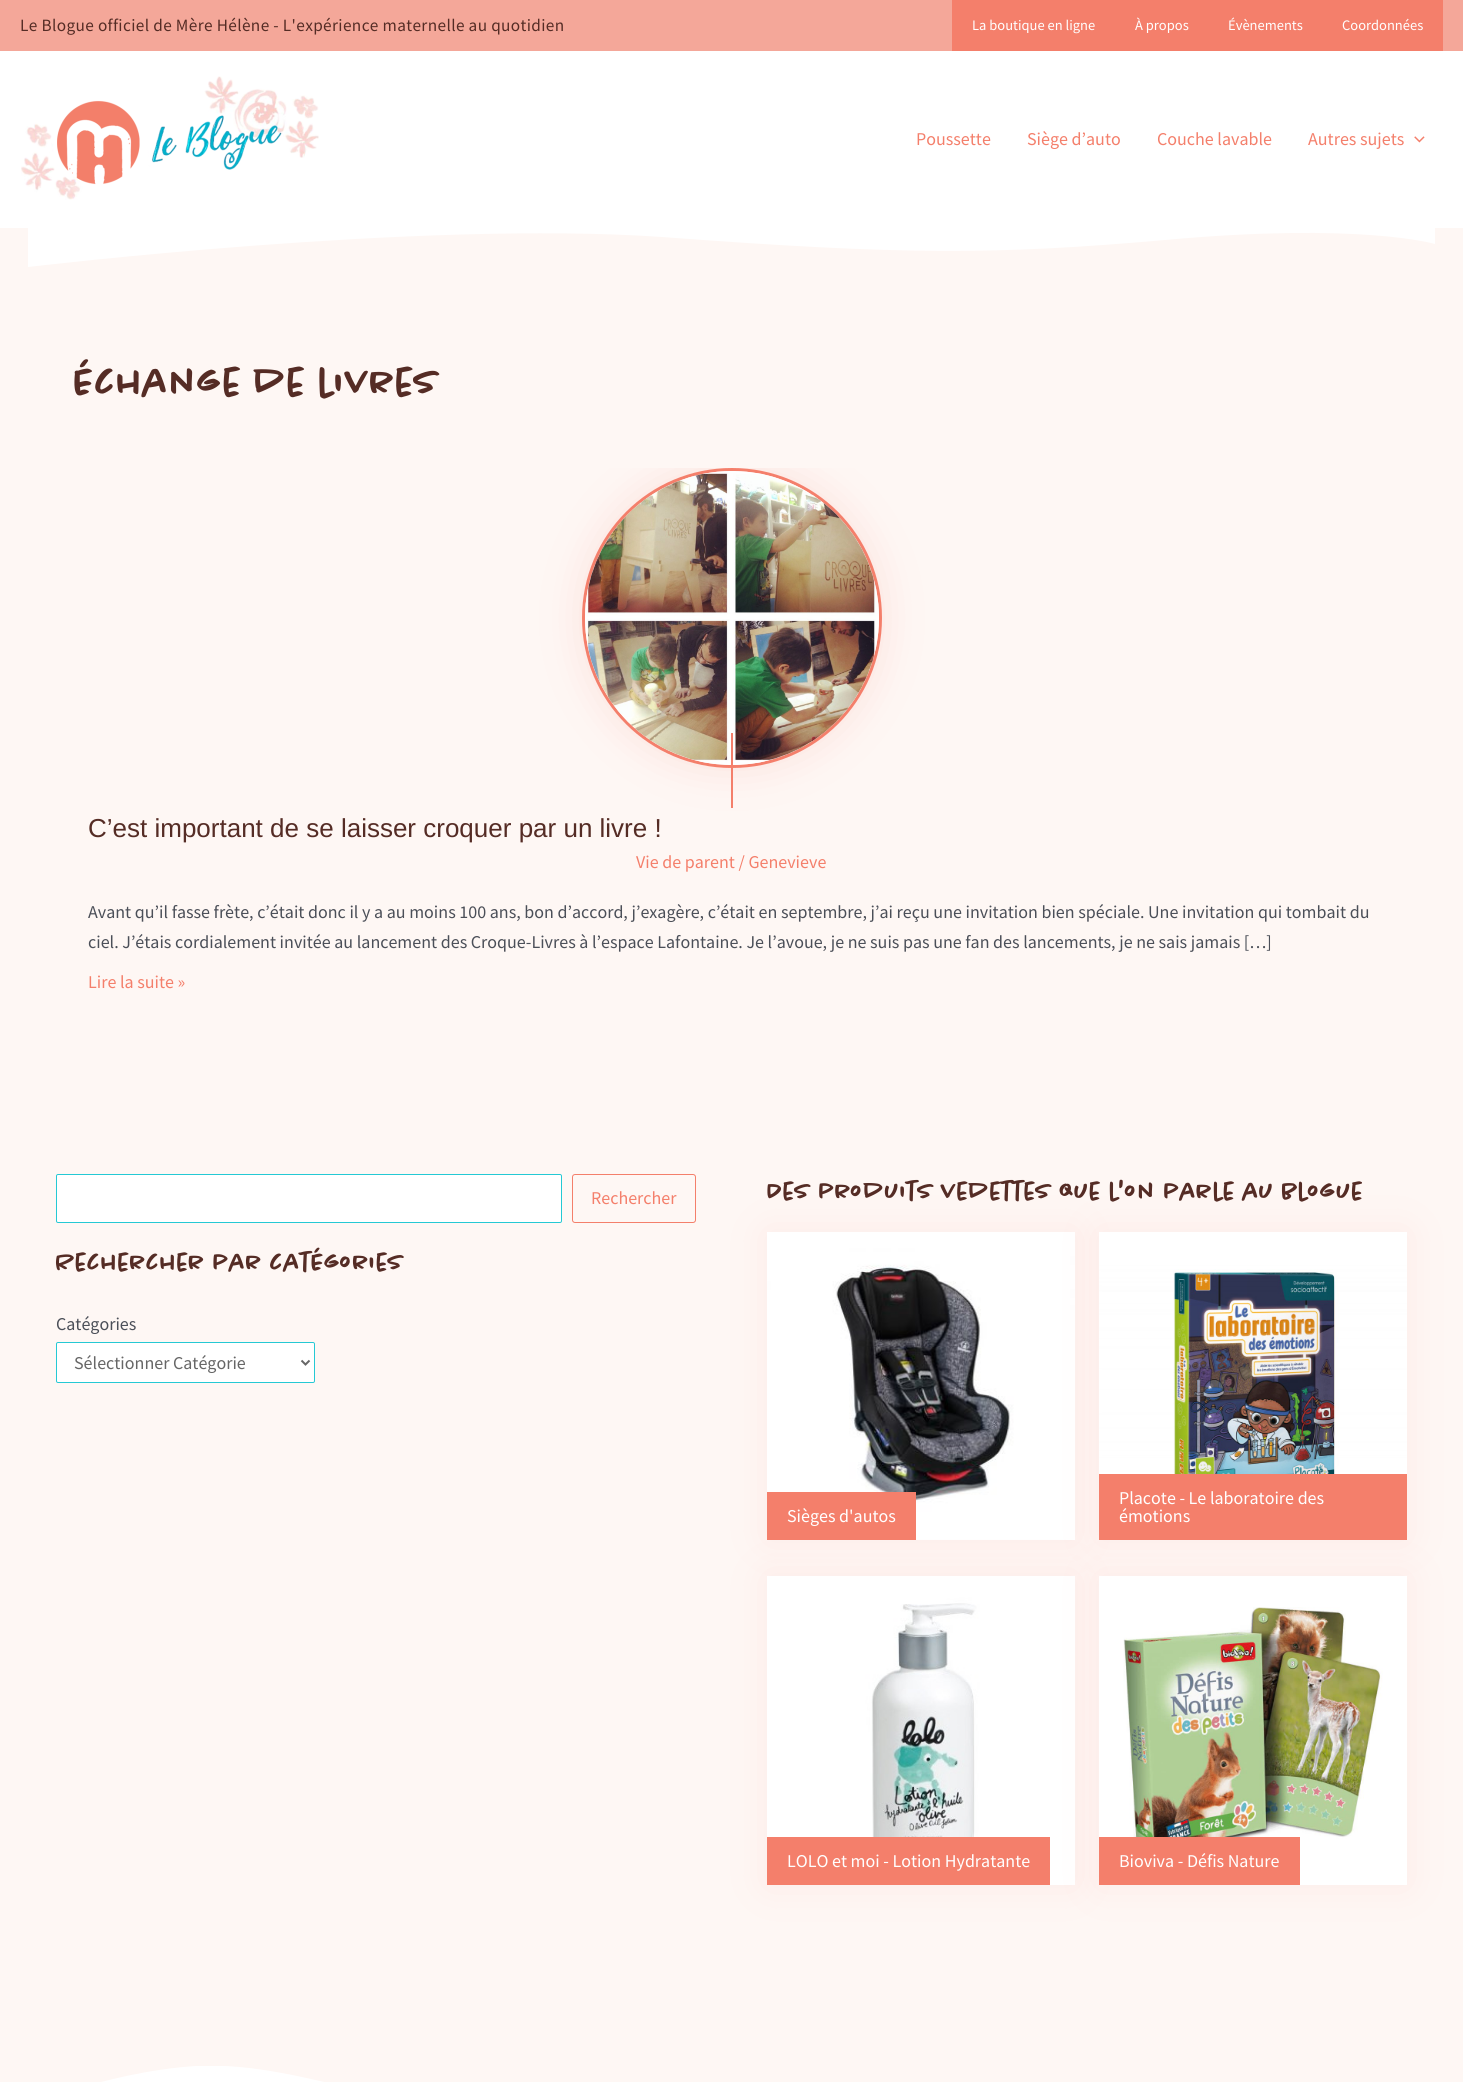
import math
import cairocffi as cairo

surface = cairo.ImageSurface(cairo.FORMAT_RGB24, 1463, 2082)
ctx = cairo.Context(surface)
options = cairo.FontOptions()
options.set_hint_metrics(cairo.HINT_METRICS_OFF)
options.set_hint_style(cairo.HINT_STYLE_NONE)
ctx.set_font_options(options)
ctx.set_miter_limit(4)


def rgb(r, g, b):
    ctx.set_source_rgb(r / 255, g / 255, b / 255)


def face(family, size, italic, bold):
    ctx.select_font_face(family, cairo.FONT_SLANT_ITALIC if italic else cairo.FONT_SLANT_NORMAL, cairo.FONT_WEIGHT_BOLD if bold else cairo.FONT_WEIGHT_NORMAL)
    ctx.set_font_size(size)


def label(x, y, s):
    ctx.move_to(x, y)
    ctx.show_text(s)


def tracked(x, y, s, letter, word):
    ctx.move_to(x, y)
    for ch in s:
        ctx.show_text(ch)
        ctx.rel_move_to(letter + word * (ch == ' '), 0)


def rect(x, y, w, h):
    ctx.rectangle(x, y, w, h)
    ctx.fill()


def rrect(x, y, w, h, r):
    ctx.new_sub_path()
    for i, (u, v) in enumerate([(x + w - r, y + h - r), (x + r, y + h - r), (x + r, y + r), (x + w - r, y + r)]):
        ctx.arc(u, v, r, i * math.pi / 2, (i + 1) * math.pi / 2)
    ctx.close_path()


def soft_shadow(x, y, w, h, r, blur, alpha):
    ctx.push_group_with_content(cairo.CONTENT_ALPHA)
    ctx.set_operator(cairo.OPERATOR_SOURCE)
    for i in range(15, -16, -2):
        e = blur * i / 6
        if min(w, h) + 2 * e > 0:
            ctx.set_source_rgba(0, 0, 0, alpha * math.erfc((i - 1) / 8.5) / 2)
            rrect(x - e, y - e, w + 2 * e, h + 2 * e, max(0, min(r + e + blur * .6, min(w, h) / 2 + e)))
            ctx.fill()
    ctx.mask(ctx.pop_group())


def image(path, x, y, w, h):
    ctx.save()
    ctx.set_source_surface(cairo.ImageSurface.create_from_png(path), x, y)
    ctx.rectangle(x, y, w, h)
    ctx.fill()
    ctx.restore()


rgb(254, 247, 244)
ctx.paint()
rgb(244, 167, 153)
rect(0, 0, 1463, 51)
face('Source Sans Pro', 17.25, 0, 0)
rgb(85, 44, 37)
tracked(20, 31, 'Le Blogue officiel de Mère Hélène - L\'expérience maternelle au quotidien', 0.35, 0)
rgb(244, 127, 107)
rect(952, 0, 491, 51)
face('Source Sans Pro', 14.5, 0, 0)
rgb(255, 255, 255)
label(972, 30, 'La boutique en ligne')
label(1135, 30, 'À propos')
label(1228, 30, 'Évènements')
label(1342, 30, 'Coordonnées')
rect(0, 51, 1463, 177)
image('image0.png', 21, 76, 298, 124)
face('Source Sans Pro', 18, 0, 0)
rgb(244, 127, 107)
label(916, 145, 'Poussette')
label(1027, 145, 'Siège d’auto')
label(1157, 145, 'Couche lavable')
label(1308, 145, 'Autres sujets')
image('image1.png', 1414, 136, 11, 7)
rgb(255, 255, 255)
ctx.new_path()
ctx.move_to(28, 267)
ctx.curve_to(28, 267, 420, 220, 662, 237)
ctx.curve_to(903, 255, 994, 255, 1165, 240)
ctx.curve_to(1361, 222, 1435, 244, 1435, 244)
ctx.line_to(1435, 228)
ctx.line_to(28, 228)
ctx.close_path()
ctx.fill()
face('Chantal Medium', 40, 0, 0)
rgb(85, 44, 37)
label(74, 396, 'Échange de livres')
face('Liberation Sans', 26, 0, 0)
label(88, 837, 'C’est important de se laisser croquer par un livre !')
ctx.save()
ctx.rectangle(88, 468, 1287, 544)
ctx.clip()
rgb(244, 127, 107)
soft_shadow(582, 468, 300, 300, 150, 20, 0.18)
ctx.restore()
rgb(255, 255, 255)
ctx.arc(732, 618, 148.5, 0, 2 * math.pi)
ctx.fill_preserve()
rgb(244, 127, 107)
ctx.set_line_width(3)
ctx.stroke()
image('image2.png', 585, 471, 294, 294)
rect(731, 733, 2, 75)
face('Source Sans Pro', 18, 0, 0)
label(636, 868, 'Vie de parent / Genevieve')
rgb(75, 79, 88)
label(88, 918, 'Avant qu’il fasse frète, c’était donc il y a au moins 100 ans, bon d’accord, j’exagère, c’était en septembre, j’ai reçu une invitation bien spéciale. Une invitation qui tombait du')
label(88, 948, 'ciel. J’étais cordialement invitée au lancement des Croque-Livres à l’espace Lafontaine. Je l’avoue, je ne suis pas une fan des lancements, je ne sais jamais […]')
rgb(244, 127, 107)
label(88, 988, 'Lire la suite »')
rgb(255, 255, 255)
rrect(56.5, 1174.5, 505, 48, 1.5)
ctx.fill_preserve()
rgb(37, 201, 212)
ctx.set_line_width(1)
ctx.stroke()
rrect(572.5, 1174.5, 123, 48, 2.5)
rgb(244, 127, 107)
ctx.stroke()
label(591, 1204, 'Rechercher')
face('Chantal Medium', 25.4, 0, 0)
rgb(85, 44, 37)
label(56, 1271, 'Rechercher par catégories')
face('Source Sans Pro', 18, 0, 0)
rgb(75, 79, 88)
label(56, 1330, 'Catégories')
rgb(255, 255, 255)
rrect(56.5, 1342.5, 258, 40, 1.5)
ctx.fill_preserve()
rgb(37, 201, 212)
ctx.stroke()
ctx.new_path()
ctx.move_to(301.5, 1360.5)
ctx.line_to(305.5, 1364.5)
ctx.line_to(309.5, 1360.5)
rgb(102, 102, 102)
ctx.set_line_width(2)
ctx.stroke()
label(74, 1369, 'Sélectionner Catégorie')
face('Chantal Medium', 25.4, 0, 0)
rgb(85, 44, 37)
label(767, 1200, 'Des produits vedettes que l\'on parle au blogue')
rgb(244, 127, 107)
soft_shadow(767, 1232, 308, 308, 0, 20, 0.1)
image('image3.png', 767, 1232, 308, 308)
rgb(244, 127, 107)
rect(767, 1492, 149, 48)
face('Source Sans Pro', 18, 0, 0)
rgb(255, 255, 255)
label(787, 1522, 'Sièges d\'autos')
rgb(244, 127, 107)
soft_shadow(1099, 1232, 308, 308, 0, 20, 0.1)
image('image4.png', 1099, 1232, 308, 242)
rgb(244, 127, 107)
rect(1099, 1474, 308, 66)
rgb(255, 255, 255)
label(1119, 1504, 'Placote - Le laboratoire des')
label(1119, 1522, 'émotions')
rgb(244, 127, 107)
soft_shadow(767, 1576, 308, 309, 0, 20, 0.1)
image('image5.png', 767, 1576, 308, 309)
rgb(244, 127, 107)
rect(767, 1837, 283, 48)
rgb(255, 255, 255)
label(787, 1867, 'LOLO et moi - Lotion Hydratante')
rgb(244, 127, 107)
soft_shadow(1099, 1576, 308, 309, 0, 20, 0.1)
image('image6.png', 1099, 1576, 308, 309)
rgb(244, 127, 107)
rect(1099, 1837, 201, 48)
rgb(255, 255, 255)
label(1119, 1867, 'Bioviva - Défis Nature')
ctx.save()
ctx.rectangle(0, 2066, 1463, 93)
ctx.clip()
ctx.new_path()
ctx.move_to(1451, 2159)
ctx.line_to(1451, 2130)
ctx.curve_to(1299, 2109, 1125, 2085, 1012, 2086)
ctx.curve_to(906, 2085, 788, 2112, 604, 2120)
ctx.curve_to(420, 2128, 310, 2060, 196, 2066)
ctx.curve_to(102, 2072, 12, 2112, 12, 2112)
ctx.line_to(12, 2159)
ctx.close_path()
ctx.fill()
ctx.restore()
surface.write_to_png('render.png')
